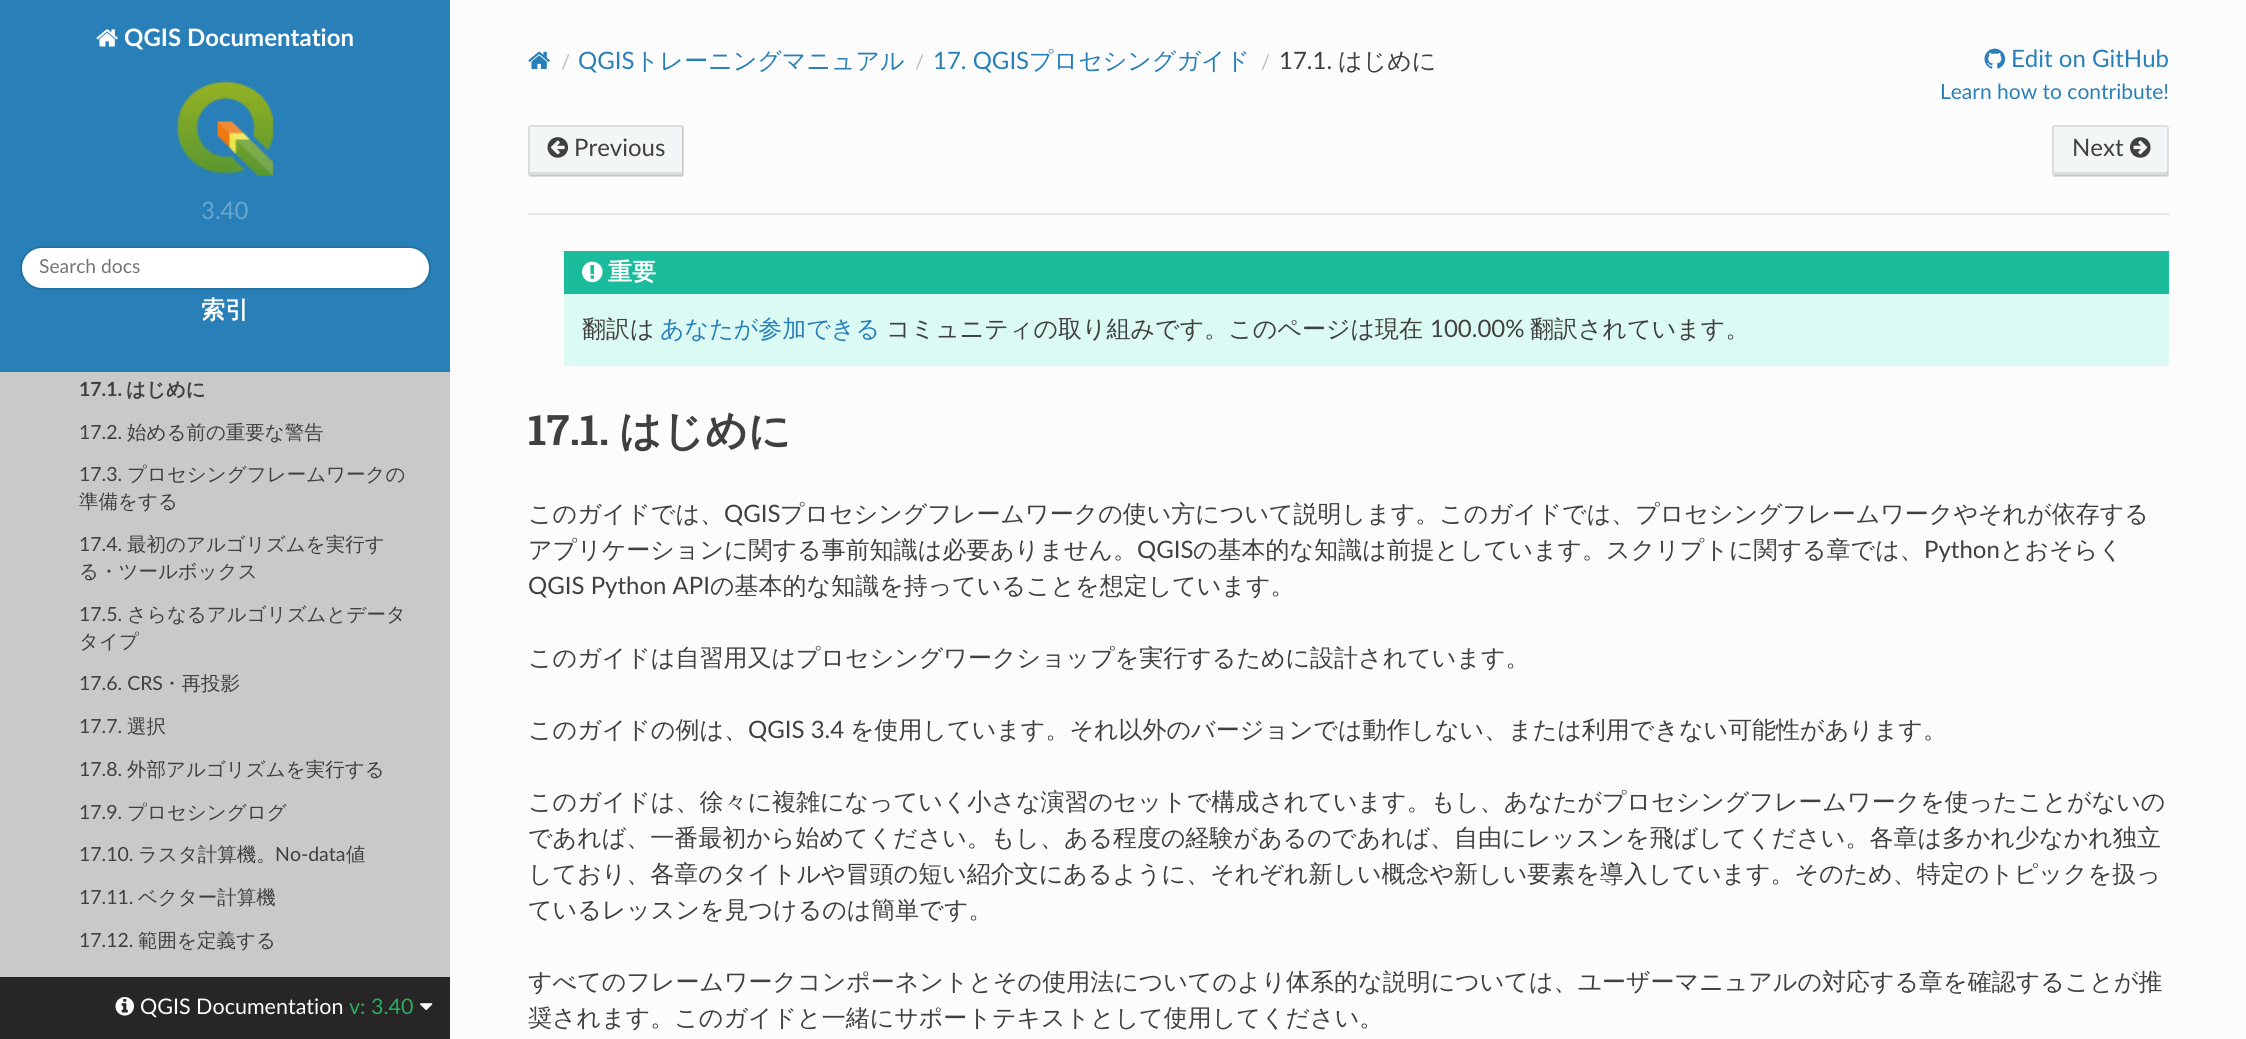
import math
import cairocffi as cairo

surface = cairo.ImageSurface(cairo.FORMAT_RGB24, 2246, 1039)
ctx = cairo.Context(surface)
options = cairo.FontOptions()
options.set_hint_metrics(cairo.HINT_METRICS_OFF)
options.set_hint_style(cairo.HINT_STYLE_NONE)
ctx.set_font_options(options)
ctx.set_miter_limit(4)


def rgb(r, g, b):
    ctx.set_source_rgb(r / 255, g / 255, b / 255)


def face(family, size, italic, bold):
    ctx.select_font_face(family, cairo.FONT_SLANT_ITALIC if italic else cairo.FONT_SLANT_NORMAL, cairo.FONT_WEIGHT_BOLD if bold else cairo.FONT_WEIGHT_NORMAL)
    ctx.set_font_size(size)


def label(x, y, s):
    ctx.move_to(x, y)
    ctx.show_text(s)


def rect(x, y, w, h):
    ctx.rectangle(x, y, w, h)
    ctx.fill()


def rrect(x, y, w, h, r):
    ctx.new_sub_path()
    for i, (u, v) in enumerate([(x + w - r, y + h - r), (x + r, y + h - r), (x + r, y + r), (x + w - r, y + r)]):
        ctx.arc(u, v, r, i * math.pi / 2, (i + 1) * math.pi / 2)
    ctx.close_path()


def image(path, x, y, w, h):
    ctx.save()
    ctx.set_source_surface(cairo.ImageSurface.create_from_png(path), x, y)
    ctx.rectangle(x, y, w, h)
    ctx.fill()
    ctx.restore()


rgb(252, 252, 252)
ctx.paint()
rgb(41, 128, 185)
rect(0, 0, 450, 372)
image('image0.png', 96, 29, 22, 18)
face('Lato', 24, 0, 1)
rgb(255, 255, 255)
label(124, 46, 'QGIS Documentation')
image('image1.png', 176, 80, 98, 96)
face('Lato', 24, 0, 0)
rgb(105, 166, 206)
label(201, 219, '3.40')
rgb(255, 255, 255)
rrect(21, 247, 409, 42, 21)
ctx.fill_preserve()
rgb(36, 114, 164)
ctx.stroke()
face('Lato', 19.25, 0, 0)
rgb(117, 117, 117)
label(39, 273, 'Search docs')
face('WenQuanYi Zen Hei', 24, 0, 1)
rgb(255, 255, 255)
label(201, 318, '索引')
rgb(201, 201, 201)
rect(0, 372, 450, 605)
face('Lato', 19.5, 0, 1)
rgb(64, 64, 64)
label(79, 396, '17.1.')
face('WenQuanYi Zen Hei', 19.5, 0, 1)
label(126, 396, 'はじめに')
face('Lato', 19.5, 0, 0)
label(79, 439, '17.2.')
face('WenQuanYi Zen Hei Medium', 19.5, 0, 0)
label(127, 439, '始める前の重要な警告')
face('Lato', 19.5, 0, 0)
label(79, 481, '17.3.')
face('WenQuanYi Zen Hei Medium', 19.5, 0, 0)
label(127, 481, 'プロセシングフレームワークの')
label(79, 508, '準備をする')
face('Lato', 19.5, 0, 0)
label(79, 551, '17.4.')
face('WenQuanYi Zen Hei Medium', 19.5, 0, 0)
label(127, 551, '最初のアルゴリズムを実行す')
label(79, 578, 'る・ツールボックス')
face('Lato', 19.5, 0, 0)
label(79, 621, '17.5.')
face('WenQuanYi Zen Hei Medium', 19.5, 0, 0)
label(127, 621, 'さらなるアルゴリズムとデータ')
label(79, 648, 'タイプ')
face('Lato', 19.5, 0, 0)
label(79, 690, '17.6. CRS')
face('WenQuanYi Zen Hei Medium', 19.5, 0, 0)
label(162, 690, '・再投影')
face('Lato', 19.5, 0, 0)
label(79, 733, '17.7.')
face('WenQuanYi Zen Hei Medium', 19.5, 0, 0)
label(127, 733, '選択')
face('Lato', 19.5, 0, 0)
label(79, 776, '17.8.')
face('WenQuanYi Zen Hei Medium', 19.5, 0, 0)
label(127, 776, '外部アルゴリズムを実行する')
face('Lato', 19.5, 0, 0)
label(79, 819, '17.9.')
face('WenQuanYi Zen Hei Medium', 19.5, 0, 0)
label(127, 819, 'プロセシングログ')
face('Lato', 19.5, 0, 0)
label(79, 861, '17.10.')
face('WenQuanYi Zen Hei Medium', 19.5, 0, 0)
label(138, 861, 'ラスタ計算機。')
face('Lato', 19.5, 0, 0)
label(275, 861, 'No-data')
face('WenQuanYi Zen Hei Medium', 19.5, 0, 0)
label(346, 861, '値')
face('Lato', 19.5, 0, 0)
label(79, 904, '17.11.')
face('WenQuanYi Zen Hei Medium', 19.5, 0, 0)
label(138, 904, 'ベクター計算機')
face('Lato', 19.5, 0, 0)
label(79, 947, '17.12.')
face('WenQuanYi Zen Hei Medium', 19.5, 0, 0)
label(138, 947, '範囲を定義する')
image('image2.png', 528, 51, 22, 18)
face('Lato', 20, 0, 0)
rgb(187, 187, 187)
label(561, 69, '/')
face('Lato', 24, 0, 0)
rgb(41, 128, 185)
label(578, 69, 'QGIS')
face('WenQuanYi Zen Hei Medium', 24, 0, 0)
label(635, 69, 'トレーニングマニュアル')
face('Lato', 20, 0, 0)
rgb(187, 187, 187)
label(915, 69, '/')
face('Lato', 24, 0, 0)
rgb(41, 128, 185)
label(933, 69, '17. QGIS')
face('WenQuanYi Zen Hei Medium', 24, 0, 0)
label(1029, 69, 'プロセシングガイド')
face('Lato', 20, 0, 0)
rgb(187, 187, 187)
label(1261, 69, '/')
face('Lato', 24, 0, 0)
rgb(64, 64, 64)
label(1279, 69, '17.1.')
face('WenQuanYi Zen Hei Medium', 24, 0, 0)
label(1338, 69, 'はじめに')
image('image3.png', 1984, 48, 22, 21)
face('Lato', 24, 0, 0)
rgb(41, 128, 185)
label(2011, 67, 'Edit on GitHub')
face('Lato', 21, 0, 0)
label(1940, 99, 'Learn how to contribute!')
rgb(243, 246, 246)
rrect(528, 125, 156, 52, 3)
ctx.fill()
rgb(219, 221, 221)
ctx.new_path()
ctx.move_to(530, 171)
ctx.line_to(530, 174)
ctx.curve_to(530, 175, 531, 176, 532, 176)
ctx.line_to(682, 176)
ctx.curve_to(682, 176, 683, 175, 683, 174)
ctx.line_to(683, 128)
ctx.curve_to(683, 127, 683, 126, 682, 126)
ctx.line_to(682, 171)
ctx.curve_to(682, 172, 682, 172, 681, 172)
ctx.line_to(531, 172)
ctx.curve_to(530, 172, 530, 172, 530, 171)
ctx.close_path()
ctx.fill()
rrect(529, 126, 154, 50, 2)
ctx.set_source_rgba(0, 0, 0, 0.1)
ctx.stroke()
image('image4.png', 547, 137, 22, 21)
face('Lato', 24, 0, 0)
rgb(64, 64, 64)
label(574, 156, 'Previous')
rgb(243, 246, 246)
rrect(2052, 125, 117, 52, 3)
ctx.fill()
rgb(219, 221, 221)
ctx.new_path()
ctx.move_to(2054, 171)
ctx.line_to(2054, 174)
ctx.curve_to(2054, 175, 2055, 176, 2056, 176)
ctx.line_to(2166, 176)
ctx.curve_to(2167, 176, 2168, 175, 2168, 174)
ctx.line_to(2168, 171)
ctx.curve_to(2168, 172, 2167, 172, 2166, 172)
ctx.line_to(2054, 172)
ctx.close_path()
ctx.fill()
rrect(2053, 126, 115, 50, 2)
ctx.set_source_rgba(0, 0, 0, 0.1)
ctx.stroke()
rgb(64, 64, 64)
label(2072, 156, 'Next')
image('image5.png', 2130, 137, 21, 21)
rgb(225, 228, 229)
rect(528, 213, 1641, 2)
rgb(219, 250, 244)
rect(564, 294, 1605, 72)
rgb(26, 188, 156)
rect(564, 251, 1605, 43)
image('image6.png', 582, 261, 21, 22)
face('WenQuanYi Zen Hei', 24, 0, 1)
rgb(255, 255, 255)
label(608, 280, '重要')
face('WenQuanYi Zen Hei Medium', 24, 0, 0)
rgb(64, 64, 64)
label(582, 337, '翻訳は')
rgb(41, 128, 185)
label(660, 337, 'あなたが参加できる')
rgb(64, 64, 64)
label(886, 337, 'コミュニティの取り組みです。このページは現在')
face('Lato', 24, 0, 0)
label(1430, 337, '100.00%')
face('WenQuanYi Zen Hei Medium', 24, 0, 0)
label(1530, 337, '翻訳されています。')
face('Roboto Slab', 42, 0, 1)
label(528, 445, '17.1.')
face('WenQuanYi Zen Hei', 42, 0, 1)
label(619, 445, 'はじめに')
face('WenQuanYi Zen Hei Medium', 24, 0, 0)
label(528, 522, 'このガイドでは、')
face('Lato', 24, 0, 0)
label(724, 522, 'QGIS')
face('WenQuanYi Zen Hei Medium', 24, 0, 0)
label(780, 522, 'プロセシングフレームワークの使い方について説明します。このガイドでは、プロセシングフレームワークやそれが依存する')
label(528, 558, 'アプリケーションに関する事前知識は必要ありません。')
face('Lato', 24, 0, 0)
label(1137, 558, 'QGIS')
face('WenQuanYi Zen Hei Medium', 24, 0, 0)
label(1193, 558, 'の基本的な知識は前提としています。スクリプトに関する章では、')
face('Lato', 24, 0, 0)
label(1924, 558, 'Python')
face('WenQuanYi Zen Hei Medium', 24, 0, 0)
label(2000, 558, 'とおそらく')
face('Lato', 24, 0, 0)
label(528, 594, 'QGIS Python API')
face('WenQuanYi Zen Hei Medium', 24, 0, 0)
label(710, 594, 'の基本的な知識を持っていることを想定しています。')
label(528, 666, 'このガイドは自習用又はプロセシングワークショップを実行するために設計されています。')
label(528, 738, 'このガイドの例は、')
face('Lato', 24, 0, 0)
label(748, 738, 'QGIS 3.4')
face('WenQuanYi Zen Hei Medium', 24, 0, 0)
label(850, 738, 'を使用しています。それ以外のバージョンでは動作しない、または利用できない可能性があります。')
label(528, 810, 'このガイドは、徐々に複雑になっていく小さな演習のセットで構成されています。もし、あなたがプロセシングフレームワークを使ったことがないの')
label(528, 846, 'であれば、一番最初から始めてください。もし、ある程度の経験があるのであれば、自由にレッスンを飛ばしてください。各章は多かれ少なかれ独立')
label(528, 882, 'しており、各章のタイトルや冒頭の短い紹介文にあるように、それぞれ新しい概念や新しい要素を導入しています。そのため、特定のトピックを扱っ')
label(528, 918, 'ているレッスンを見つけるのは簡単です。')
label(528, 990, 'すべてのフレームワークコンポーネントとその使用法についてのより体系的な説明については、ユーザーマニュアルの対応する章を確認することが推')
label(528, 1026, '奨されます。このガイドと一緒にサポートテキストとして使用してください。')
rgb(39, 37, 37)
rect(0, 977, 450, 62)
image('image7.png', 115, 997, 19, 19)
face('Lato', 21.5, 0, 0)
rgb(255, 255, 255)
label(140, 1014, 'QGIS Documentation')
rgb(39, 174, 96)
label(349, 1014, 'v: 3.40')
image('image8.png', 420, 1003, 13, 8)
surface.write_to_png('render.png')
